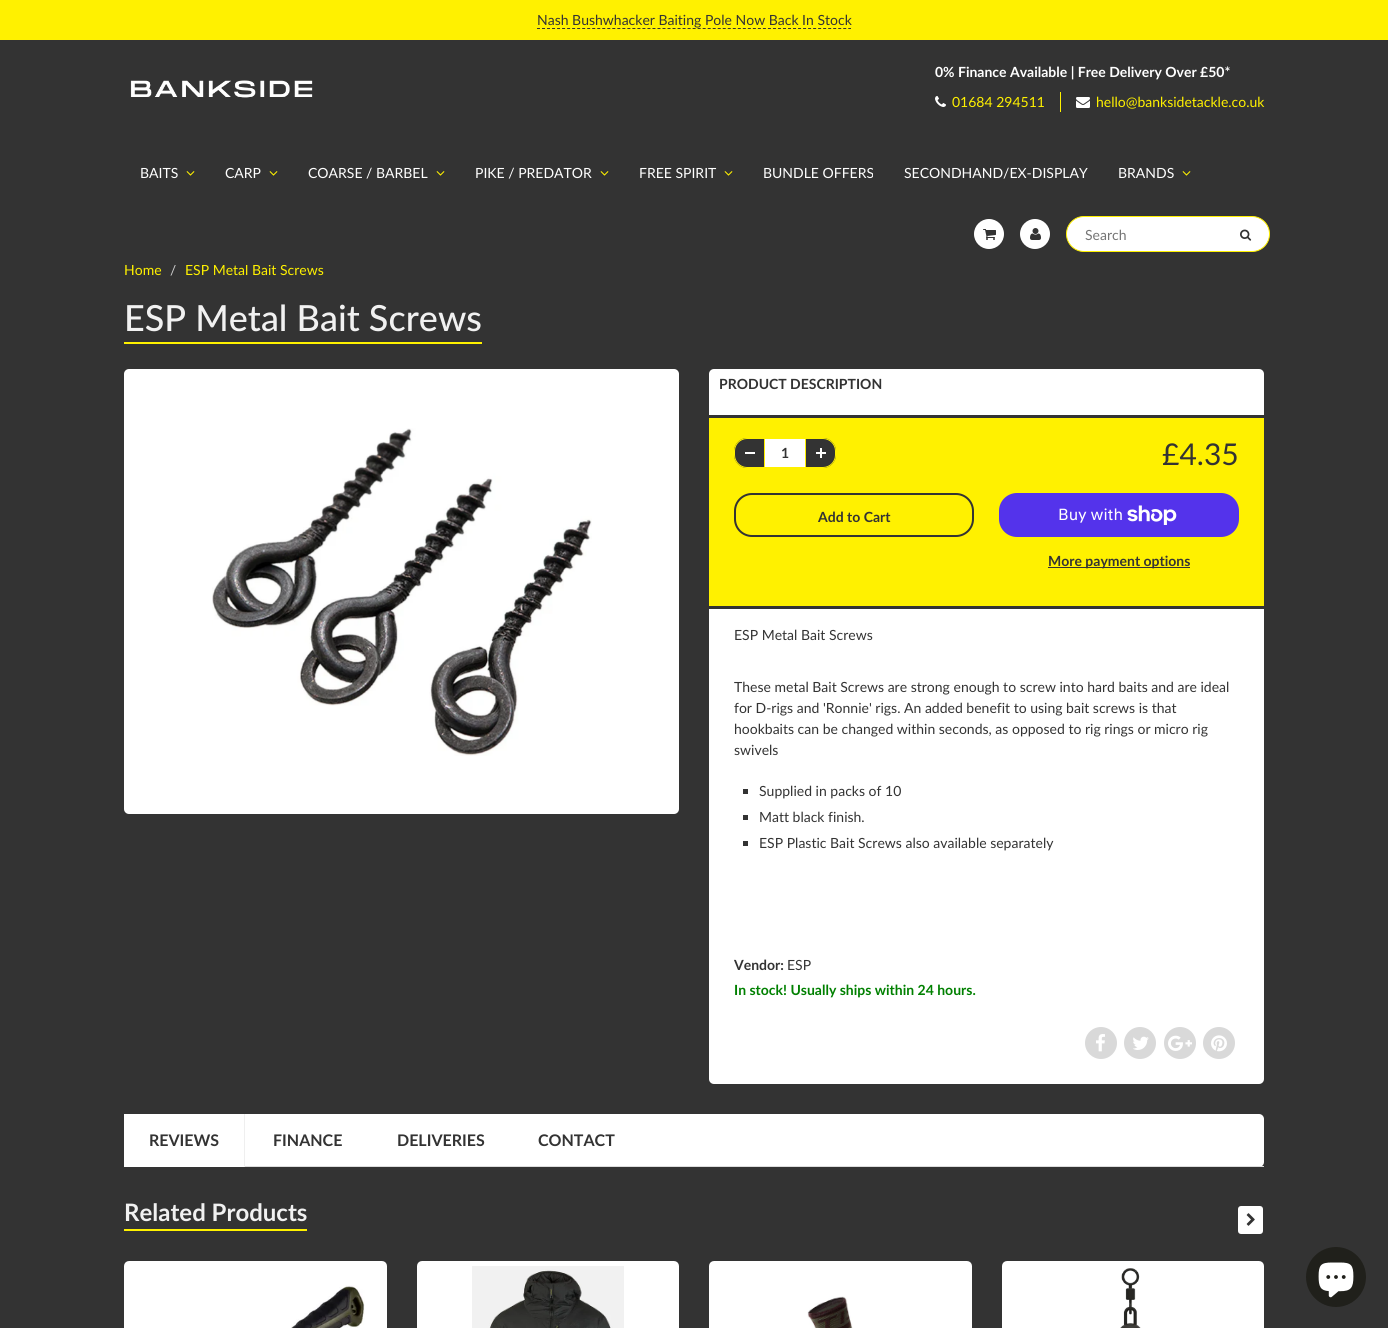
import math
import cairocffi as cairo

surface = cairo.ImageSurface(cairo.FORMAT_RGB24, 1388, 1328)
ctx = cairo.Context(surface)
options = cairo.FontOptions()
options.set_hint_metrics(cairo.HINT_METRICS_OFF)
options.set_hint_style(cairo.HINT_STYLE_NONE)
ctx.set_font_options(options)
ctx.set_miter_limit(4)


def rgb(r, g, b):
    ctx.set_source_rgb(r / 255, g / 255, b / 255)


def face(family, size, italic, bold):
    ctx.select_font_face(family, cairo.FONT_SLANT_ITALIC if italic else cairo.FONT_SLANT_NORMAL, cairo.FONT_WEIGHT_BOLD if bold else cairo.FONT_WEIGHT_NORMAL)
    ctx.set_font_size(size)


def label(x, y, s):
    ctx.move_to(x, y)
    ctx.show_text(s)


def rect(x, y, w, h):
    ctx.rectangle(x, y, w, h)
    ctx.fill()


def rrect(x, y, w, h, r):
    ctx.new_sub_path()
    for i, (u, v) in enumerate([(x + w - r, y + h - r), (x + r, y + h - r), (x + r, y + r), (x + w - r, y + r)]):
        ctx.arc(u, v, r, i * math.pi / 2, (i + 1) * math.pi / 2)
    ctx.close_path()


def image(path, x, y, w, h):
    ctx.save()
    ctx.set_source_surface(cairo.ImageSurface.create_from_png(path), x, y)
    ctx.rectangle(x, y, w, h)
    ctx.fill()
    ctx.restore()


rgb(255, 241, 0)
ctx.paint()
face('Lato', 14, 0, 0)
rgb(51, 51, 51)
label(537, 25, 'Nash Bushwhacker Baiting Pole Now Back In Stock')
ctx.new_path()
ctx.move_to(537, 28.5)
ctx.line_to(851, 28.5)
ctx.set_line_width(1)
ctx.set_dash([3, 2.02])
ctx.stroke()
rect(0, 40, 1388, 101)
image('image0.png', 130, 80, 183, 18)
face('Lato', 14, 0, 1)
rgb(255, 255, 255)
label(935, 77, '0% Finance Available | Free Delivery Over £50*')
image('image1.png', 935, 96, 11, 11)
face('Lato', 14, 0, 0)
rgb(255, 241, 0)
label(952, 107, '01684 294511')
rect(1060, 92, 1, 20)
image('image2.png', 1076, 97, 14, 11)
label(1096, 107, 'hello@banksidetackle.co.uk')
rgb(51, 51, 51)
rect(0, 265, 1388, 1063)
rgb(204, 204, 204)
label(170, 275, '/')
rgb(255, 241, 0)
label(185, 275, 'ESP Metal Bait Screws')
rgb(51, 51, 51)
rect(0, 141, 1388, 124)
rgb(255, 255, 255)
label(140, 178, 'BAITS')
image('image3.png', 186, 171, 9, 5)
label(225, 178, 'CARP')
image('image3.png', 269, 171, 9, 5)
label(308, 178, 'COARSE / BARBEL')
image('image3.png', 436, 171, 9, 5)
label(475, 178, 'PIKE / PREDATOR')
image('image3.png', 600, 171, 9, 5)
label(639, 178, 'FREE SPIRIT')
image('image3.png', 724, 171, 9, 5)
label(763, 178, 'BUNDLE OFFERS')
label(904, 178, 'SECONDHAND/EX-DISPLAY')
label(1118, 178, 'BRANDS')
image('image3.png', 1182, 171, 9, 5)
ctx.arc(989, 234, 15, 0, 2 * math.pi)
ctx.fill()
image('image4.png', 983, 229, 13, 11)
ctx.arc(1035, 234, 15, 0, 2 * math.pi)
ctx.fill()
image('image5.png', 1030, 228, 11, 12)
rrect(1066.5, 216.5, 203, 35, 17.5)
ctx.fill_preserve()
rgb(255, 241, 0)
ctx.set_dash([])
ctx.stroke()
rgb(117, 117, 117)
label(1085, 240, 'Search')
image('image6.png', 1240, 229, 12, 12)
rgb(255, 241, 0)
label(124, 275, 'Home')
rect(124, 342, 358, 2)
face('Lato Medium', 36, 0, 0)
rgb(241, 241, 241)
label(124, 331, 'ESP Metal Bait Screws')
rgb(255, 255, 255)
rrect(124, 369, 555, 445, 5)
ctx.fill()
image('image7.png', 212, 428, 380, 328)
rrect(709, 369, 555, 715, 5)
ctx.fill()
face('Lato', 14, 0, 1)
rgb(51, 51, 51)
label(719, 389, 'PRODUCT DESCRIPTION')
rgb(255, 241, 0)
rect(709, 418, 555, 188)
rgb(51, 51, 51)
rect(709, 415, 555, 3)
rect(709, 606, 555, 3)
ctx.new_path()
ctx.move_to(747, 438)
ctx.line_to(764, 438)
ctx.line_to(764, 468)
ctx.line_to(747, 468)
ctx.curve_to(740, 468, 734, 462, 734, 455)
ctx.line_to(734, 451)
ctx.curve_to(734, 444, 740, 438, 747, 438)
ctx.close_path()
ctx.fill()
rgb(255, 255, 255)
rect(745, 452, 10, 2)
rgb(255, 241, 0)
ctx.set_fill_rule(cairo.FILL_RULE_EVEN_ODD)
ctx.new_path()
ctx.move_to(747, 438)
ctx.line_to(764, 438)
ctx.line_to(764, 468)
ctx.line_to(747, 468)
ctx.curve_to(740, 468, 734, 462, 734, 455)
ctx.line_to(734, 451)
ctx.curve_to(734, 444, 740, 438, 747, 438)
ctx.close_path()
ctx.move_to(747, 439)
ctx.line_to(764, 439)
ctx.line_to(764, 467)
ctx.line_to(747, 467)
ctx.curve_to(740.5, 467, 735, 461.5, 735, 455)
ctx.line_to(735, 451)
ctx.curve_to(735, 444.5, 740.5, 439, 747, 439)
ctx.close_path()
ctx.fill()
rgb(255, 255, 255)
rect(765, 439, 40, 28)
rgb(51, 51, 51)
label(781, 458, '1')
ctx.new_path()
ctx.move_to(806, 438)
ctx.line_to(823, 438)
ctx.curve_to(830, 438, 836, 444, 836, 451)
ctx.line_to(836, 455)
ctx.curve_to(836, 462, 830, 468, 823, 468)
ctx.line_to(806, 468)
ctx.close_path()
ctx.fill()
image('image8.png', 816, 448, 10, 10)
rgb(255, 241, 0)
ctx.new_path()
ctx.move_to(806, 438)
ctx.line_to(823, 438)
ctx.curve_to(830, 438, 836, 444, 836, 451)
ctx.line_to(836, 455)
ctx.curve_to(836, 462, 830, 468, 823, 468)
ctx.line_to(806, 468)
ctx.close_path()
ctx.move_to(806, 439)
ctx.line_to(823, 439)
ctx.curve_to(829.5, 439, 835, 444.5, 835, 451)
ctx.line_to(835, 455)
ctx.curve_to(835, 461.5, 829.5, 467, 823, 467)
ctx.line_to(806, 467)
ctx.close_path()
ctx.fill()
face('Lato', 30, 0, 0)
rgb(51, 51, 51)
label(1162, 465, '£4.35')
rrect(735, 494, 238, 42, 17)
ctx.set_line_width(2)
ctx.stroke()
face('Lato', 14, 0, 1)
label(818, 522, 'Add to Cart')
rgb(84, 51, 235)
rrect(999, 493, 240, 44, 18)
ctx.fill()
face('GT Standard', 16, 0, 0)
rgb(255, 255, 255)
label(1058, 520, 'Buy with')
image('image9.png', 1127, 505, 50, 20)
rgb(51, 51, 51)
rect(1048, 567, 142, 1)
face('Lato', 14, 0, 1)
label(1048, 566, 'More payment options')
face('Lato', 14, 0, 0)
label(734, 640, 'ESP Metal Bait Screws')
label(734, 692, 'These metal Bait Screws are strong enough to screw into hard baits and are ideal')
label(734, 713, 'for D-rigs and \'Ronnie\' rigs. An added benefit to using bait screws is that')
label(734, 734, 'hookbaits can be changed within seconds, as opposed to rig rings or micro rig')
label(734, 755, 'swivels')
rect(743, 789, 5, 5)
label(759, 796, 'Supplied in packs of 10')
rect(743, 815, 5, 5)
label(759, 822, 'Matt black finish.')
rect(743, 841, 5, 5)
label(759, 848, 'ESP Plastic Bait Screws also available separately')
face('Lato', 14, 0, 1)
label(734, 970, 'Vendor:')
face('Lato', 14, 0, 0)
label(787, 970, 'ESP')
face('Lato', 14, 0, 1)
rgb(0, 128, 0)
label(734, 995, 'In stock! Usually ships within 24 hours.')
rgb(217, 217, 217)
ctx.new_path()
ctx.arc(1101, 1043, 16, 0, 2 * math.pi)
ctx.fill()
image('image10.png', 1096, 1034, 9, 18)
ctx.arc(1140, 1043, 16, 0, 2 * math.pi)
ctx.fill()
image('image11.png', 1133, 1036, 16, 14)
ctx.arc(1180, 1043, 16, 0, 2 * math.pi)
ctx.fill()
image('image12.png', 1168, 1035, 24, 16)
ctx.arc(1219, 1043, 16, 0, 2 * math.pi)
ctx.fill()
image('image13.png', 1211, 1035, 16, 17)
rgb(255, 255, 255)
rrect(124, 1114, 1140, 53, 5)
ctx.fill()
rgb(221, 221, 221)
rect(245, 1166, 1019, 1)
rgb(255, 255, 255)
rect(124, 1114, 5, 53)
rgb(239, 239, 239)
ctx.set_fill_rule(cairo.FILL_RULE_WINDING)
ctx.new_path()
ctx.move_to(245, 1114)
ctx.line_to(245, 1167)
ctx.line_to(244, 1166)
ctx.line_to(244, 1114)
ctx.close_path()
ctx.fill()
face('Lato', 16, 0, 1)
rgb(51, 51, 51)
label(149, 1146, 'REVIEWS')
label(273, 1146, 'FINANCE')
label(397, 1146, 'DELIVERIES')
label(538, 1146, 'CONTACT')
rgb(255, 241, 0)
rect(124, 1229, 183, 2)
face('Lato', 24, 0, 1)
rgb(241, 241, 241)
label(124, 1221, 'Related Products')
rgb(255, 255, 255)
rrect(1238, 1206, 25, 28, 3)
ctx.fill()
image('image14.png', 1246, 1213, 9, 13)
rrect(126.5, 1263.5, 258, 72, 2.5)
ctx.fill_preserve()
ctx.set_line_width(5)
ctx.stroke()
image('image15.png', 291, 1285, 74, 43)
rrect(419.5, 1263.5, 257, 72, 2.5)
ctx.fill_preserve()
ctx.stroke()
image('image16.png', 472, 1266, 152, 62)
rrect(711.5, 1263.5, 258, 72, 2.5)
ctx.fill_preserve()
ctx.stroke()
image('image17.png', 807, 1296, 46, 32)
rrect(1004.5, 1263.5, 257, 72, 2.5)
ctx.fill_preserve()
ctx.stroke()
image('image18.png', 1120, 1268, 21, 60)
rgb(32, 32, 27)
ctx.arc(1336, 1277, 30, 0, 2 * math.pi)
ctx.fill()
image('image19.png', 1318, 1262, 36, 36)
surface.write_to_png('render.png')
